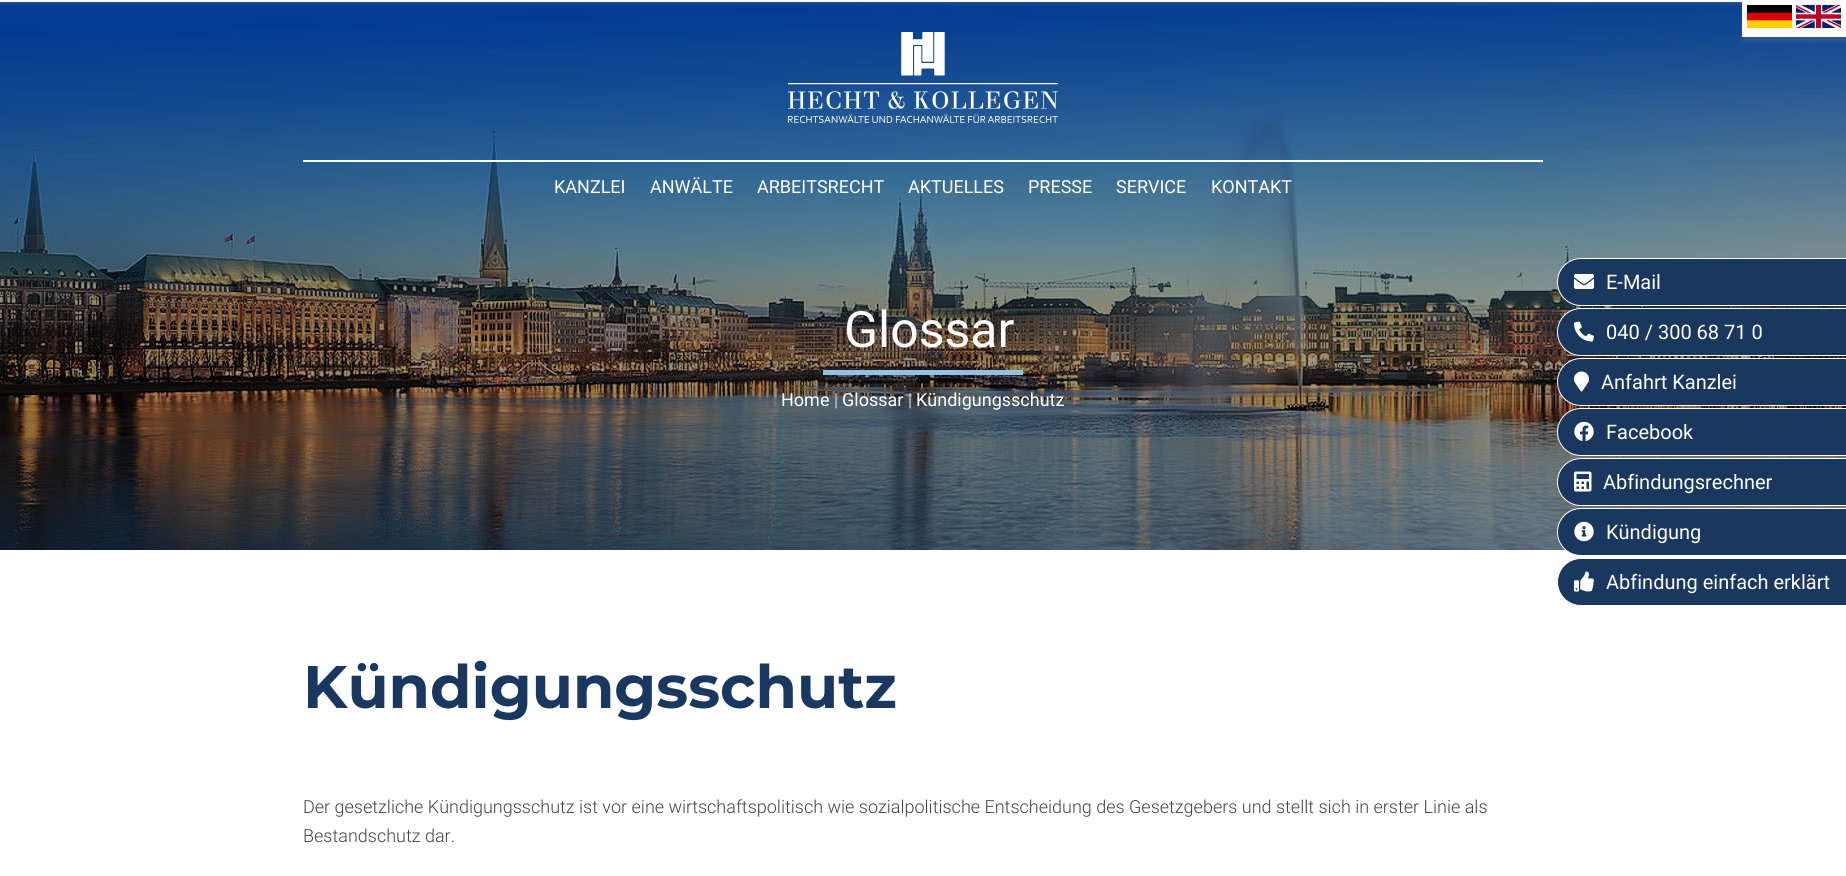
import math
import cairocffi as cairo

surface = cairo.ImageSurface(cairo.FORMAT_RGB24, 1846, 876)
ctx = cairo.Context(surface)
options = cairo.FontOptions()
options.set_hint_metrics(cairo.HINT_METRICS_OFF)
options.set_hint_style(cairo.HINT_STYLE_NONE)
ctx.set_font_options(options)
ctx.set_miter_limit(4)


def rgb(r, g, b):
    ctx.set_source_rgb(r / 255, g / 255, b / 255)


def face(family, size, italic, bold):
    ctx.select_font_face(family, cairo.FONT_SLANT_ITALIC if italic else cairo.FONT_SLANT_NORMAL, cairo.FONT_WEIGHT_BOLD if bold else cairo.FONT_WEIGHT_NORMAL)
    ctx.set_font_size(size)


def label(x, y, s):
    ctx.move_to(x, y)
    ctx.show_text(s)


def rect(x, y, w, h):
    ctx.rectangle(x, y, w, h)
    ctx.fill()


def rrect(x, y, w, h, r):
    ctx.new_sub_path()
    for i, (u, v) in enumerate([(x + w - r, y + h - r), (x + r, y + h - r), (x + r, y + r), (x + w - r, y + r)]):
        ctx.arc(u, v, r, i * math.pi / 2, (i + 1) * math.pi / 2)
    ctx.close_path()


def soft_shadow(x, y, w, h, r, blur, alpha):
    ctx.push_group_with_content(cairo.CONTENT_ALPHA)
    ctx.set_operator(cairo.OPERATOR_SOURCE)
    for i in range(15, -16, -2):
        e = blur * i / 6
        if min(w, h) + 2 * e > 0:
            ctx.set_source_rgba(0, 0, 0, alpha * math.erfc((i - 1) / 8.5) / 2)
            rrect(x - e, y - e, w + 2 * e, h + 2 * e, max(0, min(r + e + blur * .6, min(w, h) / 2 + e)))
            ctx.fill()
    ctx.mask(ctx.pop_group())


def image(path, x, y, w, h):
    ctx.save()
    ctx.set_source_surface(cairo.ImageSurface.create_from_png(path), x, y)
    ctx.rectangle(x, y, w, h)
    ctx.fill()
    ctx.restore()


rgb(255, 255, 255)
ctx.paint()
image('image3.png', 0, 2, 1846, 548)
rgb(163, 163, 163)
soft_shadow(1, -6, 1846, 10, 0, 2, 0.2)
rgb(255, 255, 255)
rect(0, 0, 1742, 2)
rgb(163, 163, 163)
soft_shadow(1743, 4, 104, 37, 0, 2, 0.2)
rgb(255, 255, 255)
rect(1742, 0, 104, 37)
image('image0.png', 1747, 5, 45, 23)
image('image1.png', 1796, 5, 45, 23)
image('image2.png', 788, 32, 270, 91)
rect(303, 160, 1240, 2)
face('Roboto', 18, 0, 0)
label(554, 193, 'KANZLEI')
label(650, 193, 'ANWÄLTE')
label(757, 193, 'ARBEITSRECHT')
label(908, 193, 'AKTUELLES')
label(1028, 193, 'PRESSE')
label(1116, 193, 'SERVICE')
label(1211, 193, 'KONTAKT')
face('Roboto', 50, 0, 0)
label(844, 347, 'Glossar')
rgb(145, 193, 230)
rect(823, 370, 200, 5)
face('Roboto', 18, 0, 0)
rgb(255, 255, 255)
label(781, 406, 'Home')
face('Roboto Light', 18, 0, 0)
label(834, 406, '|')
face('Roboto', 18, 0, 0)
label(842, 406, 'Glossar')
face('Roboto Light', 18, 0, 0)
label(908, 406, '|')
face('Roboto', 18, 0, 0)
label(916, 406, 'Kündigungsschutz')
rgb(26, 55, 96)
ctx.new_path()
ctx.move_to(1581, 258.5)
ctx.line_to(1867, 258.5)
ctx.curve_to(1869, 258.5, 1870.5, 260, 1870.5, 262)
ctx.line_to(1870.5, 302)
ctx.curve_to(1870.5, 304, 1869, 305.5, 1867, 305.5)
ctx.line_to(1581, 305.5)
ctx.curve_to(1568, 305.5, 1557.5, 295, 1557.5, 282)
ctx.curve_to(1557.5, 269, 1568, 258.5, 1581, 258.5)
ctx.close_path()
ctx.fill_preserve()
rgb(255, 255, 255)
ctx.set_line_width(1)
ctx.stroke()
image('image4.png', 1574, 274, 20, 15)
face('Roboto', 20, 0, 0)
label(1606, 289, 'E-Mail')
rgb(26, 55, 96)
ctx.new_path()
ctx.move_to(1581, 308.5)
ctx.line_to(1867, 308.5)
ctx.curve_to(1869, 308.5, 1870.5, 310, 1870.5, 312)
ctx.line_to(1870.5, 352)
ctx.curve_to(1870.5, 354, 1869, 355.5, 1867, 355.5)
ctx.line_to(1581, 355.5)
ctx.curve_to(1568, 355.5, 1557.5, 345, 1557.5, 332)
ctx.curve_to(1557.5, 319, 1568, 308.5, 1581, 308.5)
ctx.close_path()
ctx.fill_preserve()
rgb(255, 255, 255)
ctx.stroke()
image('image5.png', 1574, 321, 20, 21)
label(1606, 339, '040 / 300 68 71 0')
rgb(26, 55, 96)
ctx.new_path()
ctx.move_to(1581, 358.5)
ctx.line_to(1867, 358.5)
ctx.curve_to(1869, 358.5, 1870.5, 360, 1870.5, 362)
ctx.line_to(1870.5, 402)
ctx.curve_to(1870.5, 404, 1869, 405.5, 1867, 405.5)
ctx.line_to(1581, 405.5)
ctx.curve_to(1568, 405.5, 1557.5, 395, 1557.5, 382)
ctx.curve_to(1557.5, 369, 1568, 358.5, 1581, 358.5)
ctx.close_path()
ctx.fill_preserve()
rgb(255, 255, 255)
ctx.stroke()
image('image6.png', 1574, 371, 15, 21)
label(1601, 389, 'Anfahrt Kanzlei')
rgb(26, 55, 96)
ctx.new_path()
ctx.move_to(1581, 408.5)
ctx.line_to(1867, 408.5)
ctx.curve_to(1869, 408.5, 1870.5, 410, 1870.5, 412)
ctx.line_to(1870.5, 452)
ctx.curve_to(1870.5, 454, 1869, 455.5, 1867, 455.5)
ctx.line_to(1581, 455.5)
ctx.curve_to(1568, 455.5, 1557.5, 445, 1557.5, 432)
ctx.curve_to(1557.5, 419, 1568, 408.5, 1581, 408.5)
ctx.close_path()
ctx.fill_preserve()
rgb(255, 255, 255)
ctx.stroke()
image('image7.png', 1574, 421, 20, 20)
label(1606, 439, 'Facebook')
rgb(26, 55, 96)
ctx.new_path()
ctx.move_to(1581, 458.5)
ctx.line_to(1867, 458.5)
ctx.curve_to(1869, 458.5, 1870.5, 460, 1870.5, 462)
ctx.line_to(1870.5, 502)
ctx.curve_to(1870.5, 504, 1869, 505.5, 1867, 505.5)
ctx.line_to(1581, 505.5)
ctx.curve_to(1568, 505.5, 1557.5, 495, 1557.5, 482)
ctx.curve_to(1557.5, 469, 1568, 458.5, 1581, 458.5)
ctx.close_path()
ctx.fill_preserve()
rgb(255, 255, 255)
ctx.stroke()
image('image8.png', 1574, 471, 18, 21)
label(1603, 489, 'Abfindungsrechner')
rgb(26, 55, 96)
ctx.new_path()
ctx.move_to(1581, 508.5)
ctx.line_to(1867, 508.5)
ctx.curve_to(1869, 508.5, 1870.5, 510, 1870.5, 512)
ctx.line_to(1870.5, 552)
ctx.curve_to(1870.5, 554, 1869, 555.5, 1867, 555.5)
ctx.line_to(1581, 555.5)
ctx.curve_to(1568, 555.5, 1557.5, 545, 1557.5, 532)
ctx.curve_to(1557.5, 519, 1568, 508.5, 1581, 508.5)
ctx.close_path()
ctx.fill_preserve()
rgb(255, 255, 255)
ctx.stroke()
image('image9.png', 1574, 521, 20, 21)
label(1606, 539, 'Kündigung')
rgb(26, 55, 96)
ctx.new_path()
ctx.move_to(1581, 558.5)
ctx.line_to(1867, 558.5)
ctx.curve_to(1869, 558.5, 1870.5, 560, 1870.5, 562)
ctx.line_to(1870.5, 602)
ctx.curve_to(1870.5, 604, 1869, 605.5, 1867, 605.5)
ctx.line_to(1581, 605.5)
ctx.curve_to(1568, 605.5, 1557.5, 595, 1557.5, 582)
ctx.curve_to(1557.5, 569, 1568, 558.5, 1581, 558.5)
ctx.close_path()
ctx.fill_preserve()
rgb(255, 255, 255)
ctx.stroke()
image('image10.png', 1574, 571, 20, 21)
label(1606, 589, 'Abfindung einfach erklärt')
face('Montserrat', 60, 0, 1)
rgb(26, 55, 96)
label(303, 708, 'Kündigungsschutz')
face('Roboto Light', 18, 0, 0)
rgb(68, 68, 68)
label(303, 813, 'Der gesetzliche Kündigungsschutz ist vor eine wirtschaftspolitisch wie sozialpolitische Entscheidung des Gesetzgebers und stellt sich in erster Linie als')
label(303, 842, 'Bestandschutz dar.')
surface.write_to_png('render.png')
